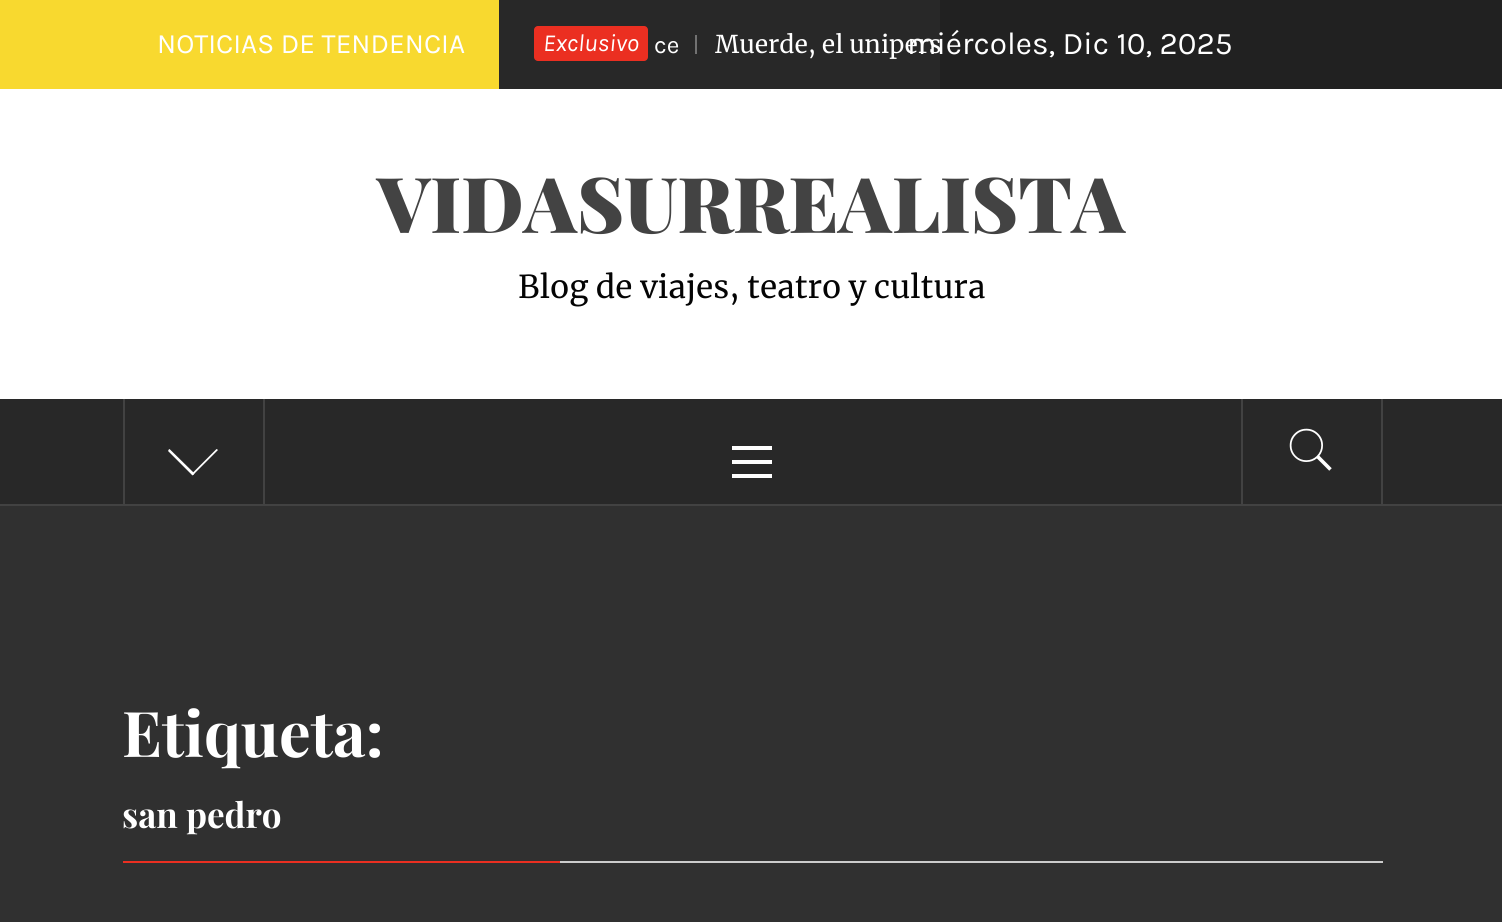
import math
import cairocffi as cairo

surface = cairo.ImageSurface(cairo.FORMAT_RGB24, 1502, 922)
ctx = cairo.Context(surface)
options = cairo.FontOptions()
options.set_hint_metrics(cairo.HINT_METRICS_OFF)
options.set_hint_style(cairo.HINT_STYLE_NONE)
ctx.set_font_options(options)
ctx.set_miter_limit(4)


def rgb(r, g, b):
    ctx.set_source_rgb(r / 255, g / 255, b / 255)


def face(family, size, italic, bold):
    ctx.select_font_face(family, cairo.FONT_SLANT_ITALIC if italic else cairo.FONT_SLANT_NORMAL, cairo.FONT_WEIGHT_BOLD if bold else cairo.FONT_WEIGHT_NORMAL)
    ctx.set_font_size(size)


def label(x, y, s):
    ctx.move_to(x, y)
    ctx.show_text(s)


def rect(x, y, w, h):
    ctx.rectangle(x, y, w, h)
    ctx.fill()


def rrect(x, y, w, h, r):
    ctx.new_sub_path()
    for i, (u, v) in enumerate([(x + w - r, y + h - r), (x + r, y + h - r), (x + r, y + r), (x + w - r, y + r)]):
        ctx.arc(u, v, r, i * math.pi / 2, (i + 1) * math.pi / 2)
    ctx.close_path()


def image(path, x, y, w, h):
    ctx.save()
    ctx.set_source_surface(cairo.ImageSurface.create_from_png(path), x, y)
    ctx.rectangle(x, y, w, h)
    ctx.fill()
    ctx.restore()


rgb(255, 255, 255)
ctx.paint()
rgb(248, 217, 47)
rect(0, 0, 499, 89)
rgb(33, 33, 33)
rect(940, 0, 562, 89)
face('Karla', 28, 0, 0)
rgb(255, 255, 255)
label(157, 53, 'NOTICIAS DE TENDENCIA')
rgb(40, 40, 40)
rect(499, 0, 441, 89)
rgb(235, 47, 33)
rrect(534, 26, 114, 35, 4)
ctx.fill()
face('Karla', 24.5, 1, 0)
rgb(255, 255, 255)
label(543, 51, 'Exclusivo')
face('Karla', 24.5, 0, 0)
label(654, 53, 'ce')
rgb(114, 114, 114)
rect(695, 35, 2, 19)
face('Merriweather', 24.5, 0, 0)
rgb(255, 255, 255)
label(715, 53, 'Muerde, el unipers')
face('Karla', 31.5, 0, 0)
label(907, 54, 'miércoles, Dic 10, 2025')
face('Playfair Display Black', 77, 0, 0)
rgb(67, 67, 67)
label(377, 233, 'VIDASURREALISTA')
face('Merriweather', 31.5, 0, 0)
rgb(4, 4, 4)
label(518, 298, 'Blog de viajes, teatro y cultura')
rgb(40, 40, 40)
rect(0, 399, 1502, 105)
rgb(66, 66, 66)
rect(0, 504, 1502, 2)
rect(1381, 399, 2, 105)
rect(123, 399, 2, 105)
rect(263, 399, 2, 105)
rgb(255, 255, 255)
ctx.new_path()
ctx.move_to(169, 449.5)
ctx.line_to(193.5, 474.5)
ctx.line_to(192.5, 475.5)
ctx.line_to(168, 451)
ctx.close_path()
ctx.fill()
ctx.new_path()
ctx.move_to(216.5, 449)
ctx.line_to(218, 450)
ctx.line_to(193, 475)
ctx.line_to(192, 473.5)
ctx.close_path()
ctx.fill()
ctx.new_path()
ctx.move_to(169.5, 449)
ctx.line_to(194.5, 473.5)
ctx.line_to(193, 475)
ctx.line_to(168.5, 450)
ctx.close_path()
ctx.fill()
rect(732, 460, 40, 4)
rect(732, 446, 40, 4)
rect(732, 474, 40, 4)
rgb(66, 66, 66)
rect(1241, 399, 2, 105)
image('image0.png', 1289, 428, 43, 43)
rgb(48, 48, 48)
rect(0, 506, 1502, 416)
rgb(204, 204, 204)
rect(560, 861, 823, 2)
face('Playfair Display', 63, 0, 1)
rgb(255, 255, 255)
label(122, 757, 'Etiqueta:')
face('Playfair Display', 35, 0, 1)
label(122, 828, 'san pedro')
rgb(235, 47, 33)
rect(123, 861, 437, 2)
surface.write_to_png('render.png')
